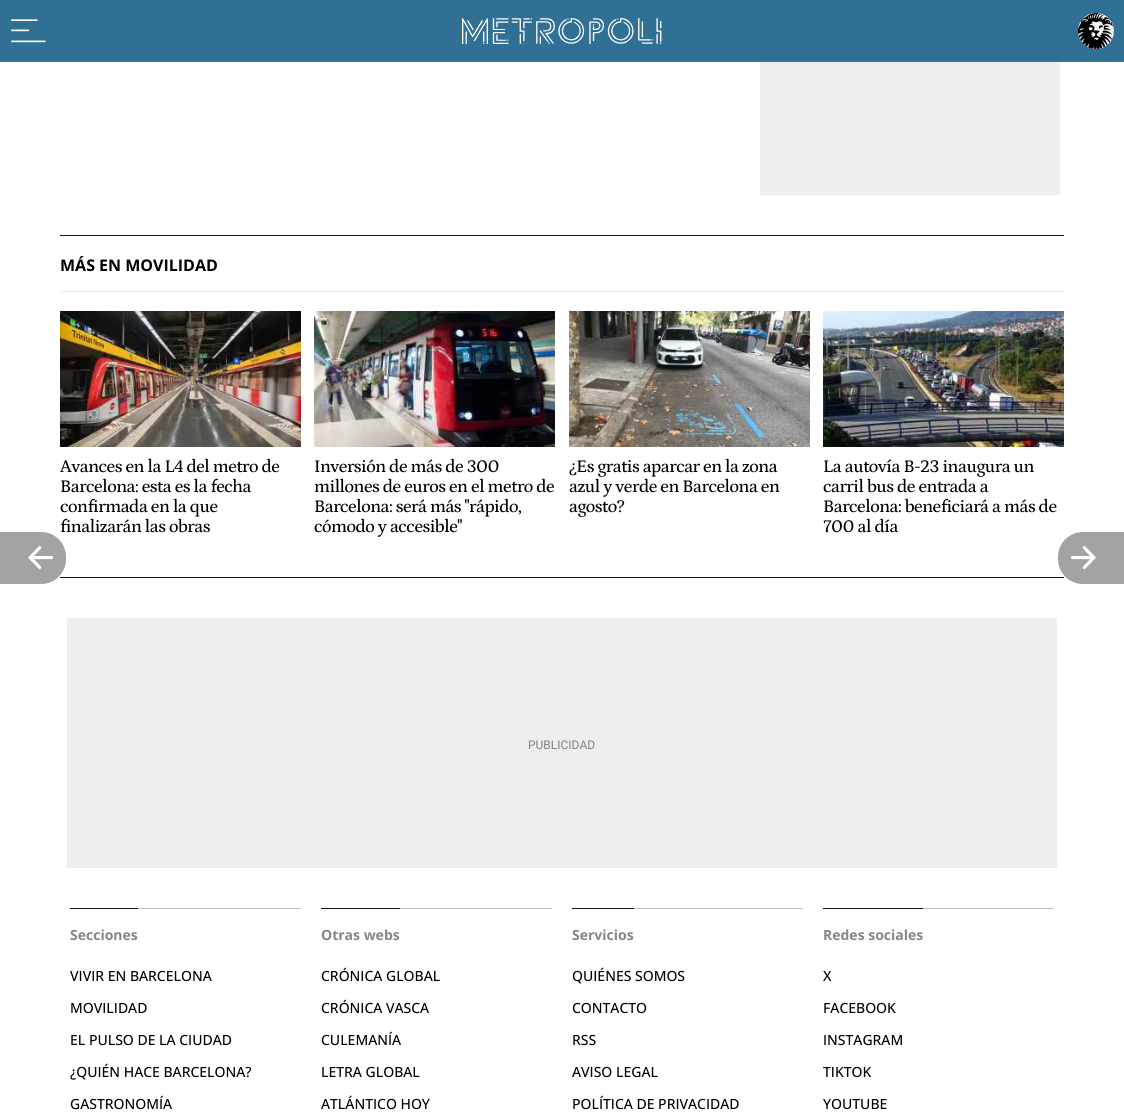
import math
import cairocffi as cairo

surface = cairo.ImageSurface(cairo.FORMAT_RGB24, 1124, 1115)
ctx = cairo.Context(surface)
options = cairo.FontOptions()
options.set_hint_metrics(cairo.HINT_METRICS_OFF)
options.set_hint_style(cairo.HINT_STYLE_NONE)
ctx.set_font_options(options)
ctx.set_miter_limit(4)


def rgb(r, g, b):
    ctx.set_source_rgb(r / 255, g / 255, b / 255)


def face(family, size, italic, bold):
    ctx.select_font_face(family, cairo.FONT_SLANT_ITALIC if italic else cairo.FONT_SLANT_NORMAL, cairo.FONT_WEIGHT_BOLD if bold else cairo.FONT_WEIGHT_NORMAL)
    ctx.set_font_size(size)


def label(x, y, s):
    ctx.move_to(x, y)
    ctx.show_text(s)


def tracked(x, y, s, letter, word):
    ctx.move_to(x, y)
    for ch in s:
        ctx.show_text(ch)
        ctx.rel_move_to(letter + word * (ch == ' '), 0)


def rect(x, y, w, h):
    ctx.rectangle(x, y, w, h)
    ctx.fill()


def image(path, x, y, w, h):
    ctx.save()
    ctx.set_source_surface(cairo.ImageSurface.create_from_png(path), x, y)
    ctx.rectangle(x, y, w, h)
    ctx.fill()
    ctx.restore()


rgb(255, 255, 255)
ctx.paint()
rgb(48, 112, 148)
rect(0, 0, 1124, 61)
image('image0.png', 11, 19, 35, 24)
image('image1.png', 462, 18, 200, 26)
rgb(243, 243, 243)
ctx.arc(1096, 31, 18, 0, 2 * math.pi)
ctx.fill()
image('image2.png', 1078, 13, 36, 36)
rgb(62, 116, 146)
rect(0, 61, 1124, 1)
rgb(238, 238, 238)
rect(760, 62, 300, 133)
face('Petrona Medium', 18, 0, 0)
rgb(0, 0, 0)
tracked(60, 532, 'finalizarán las obras', -0.5, 0)
rgb(17, 17, 17)
rect(60, 577, 1004, 1)
rgb(163, 163, 165)
ctx.new_path()
ctx.move_to(0, 532)
ctx.line_to(41, 532)
ctx.curve_to(55, 532, 66, 543, 66, 557)
ctx.line_to(66, 559)
ctx.curve_to(66, 573, 55, 584, 41, 584)
ctx.line_to(0, 584)
ctx.close_path()
ctx.fill()
image('image3.png', 28, 546, 25, 23)
rgb(17, 17, 17)
rect(60, 235, 1004, 1)
face('Open Sans', 16, 0, 1)
rgb(0, 0, 0)
label(60, 271, 'MÁS EN MOVILIDAD')
rgb(236, 236, 236)
rect(60, 291, 1004, 1)
image('image4.png', 60, 311, 241, 136)
face('Petrona Medium', 18, 0, 0)
rgb(0, 0, 0)
tracked(60, 472, 'Avances en la L4 del metro de', -0.5, 0)
tracked(60, 492, 'Barcelona: esta es la fecha', -0.5, 0)
tracked(60, 512, 'confirmada en la que', -0.5, 0)
image('image5.png', 314, 311, 241, 136)
tracked(314, 472, 'Inversión de más de 300', -0.5, 0)
tracked(314, 492, 'millones de euros en el metro de', -0.5, 0)
tracked(314, 512, 'Barcelona: será más "rápido,', -0.5, 0)
tracked(314, 532, 'cómodo y accesible"', -0.5, 0)
image('image6.png', 569, 311, 241, 136)
tracked(569, 472, '¿Es gratis aparcar en la zona', -0.5, 0)
tracked(569, 492, 'azul y verde en Barcelona en', -0.5, 0)
tracked(569, 512, 'agosto?', -0.5, 0)
image('image7.png', 823, 311, 241, 136)
tracked(823, 472, 'La autovía B-23 inaugura un', -0.5, 0)
tracked(823, 492, 'carril bus de entrada a', -0.5, 0)
tracked(823, 512, 'Barcelona: beneficiará a más de', -0.5, 0)
tracked(823, 532, '700 al día', -0.5, 0)
rgb(238, 238, 238)
rect(67, 618, 990, 250)
face('Roboto', 12, 0, 0)
rgb(128, 128, 128)
label(528, 749, 'PUBLICIDAD')
rgb(163, 163, 165)
ctx.new_path()
ctx.move_to(1083, 532)
ctx.line_to(1124, 532)
ctx.line_to(1124, 584)
ctx.line_to(1083, 584)
ctx.curve_to(1069, 584, 1058, 573, 1058, 559)
ctx.line_to(1058, 557)
ctx.curve_to(1058, 543, 1069, 532, 1083, 532)
ctx.close_path()
ctx.fill()
image('image8.png', 1071, 546, 25, 23)
rgb(189, 189, 189)
rect(138, 908, 163, 1)
rgb(17, 17, 17)
rect(70, 908, 68, 1)
face('Open Sans', 14, 0, 1)
rgb(134, 134, 134)
label(70, 940, 'Secciones')
face('Open Sans Medium', 14, 0, 0)
rgb(0, 0, 0)
label(70, 981, 'VIVIR EN BARCELONA')
label(70, 1013, 'MOVILIDAD')
label(70, 1045, 'EL PULSO DE LA CIUDAD')
label(70, 1077, '¿QUIÉN HACE BARCELONA?')
label(70, 1109, 'GASTRONOMÍA')
rgb(189, 189, 189)
rect(400, 908, 152, 1)
rgb(17, 17, 17)
rect(321, 908, 79, 1)
face('Open Sans', 14, 0, 1)
rgb(134, 134, 134)
label(321, 940, 'Otras webs')
face('Open Sans Medium', 14, 0, 0)
rgb(0, 0, 0)
label(321, 981, 'CRÓNICA GLOBAL')
label(321, 1013, 'CRÓNICA VASCA')
label(321, 1045, 'CULEMANÍA')
label(321, 1077, 'LETRA GLOBAL')
label(321, 1109, 'ATLÁNTICO HOY')
rgb(189, 189, 189)
rect(634, 908, 169, 1)
rgb(17, 17, 17)
rect(572, 908, 62, 1)
face('Open Sans', 14, 0, 1)
rgb(134, 134, 134)
label(572, 940, 'Servicios')
face('Open Sans Medium', 14, 0, 0)
rgb(0, 0, 0)
label(572, 981, 'QUIÉNES SOMOS')
label(572, 1013, 'CONTACTO')
label(572, 1045, 'RSS')
label(572, 1077, 'AVISO LEGAL')
label(572, 1109, 'POLÍTICA DE PRIVACIDAD')
rgb(189, 189, 189)
rect(923, 908, 131, 1)
rgb(17, 17, 17)
rect(823, 908, 100, 1)
face('Open Sans', 14, 0, 1)
rgb(134, 134, 134)
label(823, 940, 'Redes sociales')
face('Open Sans Medium', 14, 0, 0)
rgb(0, 0, 0)
label(823, 981, 'X')
label(823, 1013, 'FACEBOOK')
label(823, 1045, 'INSTAGRAM')
label(823, 1077, 'TIKTOK')
label(823, 1109, 'YOUTUBE')
surface.write_to_png('render.png')
